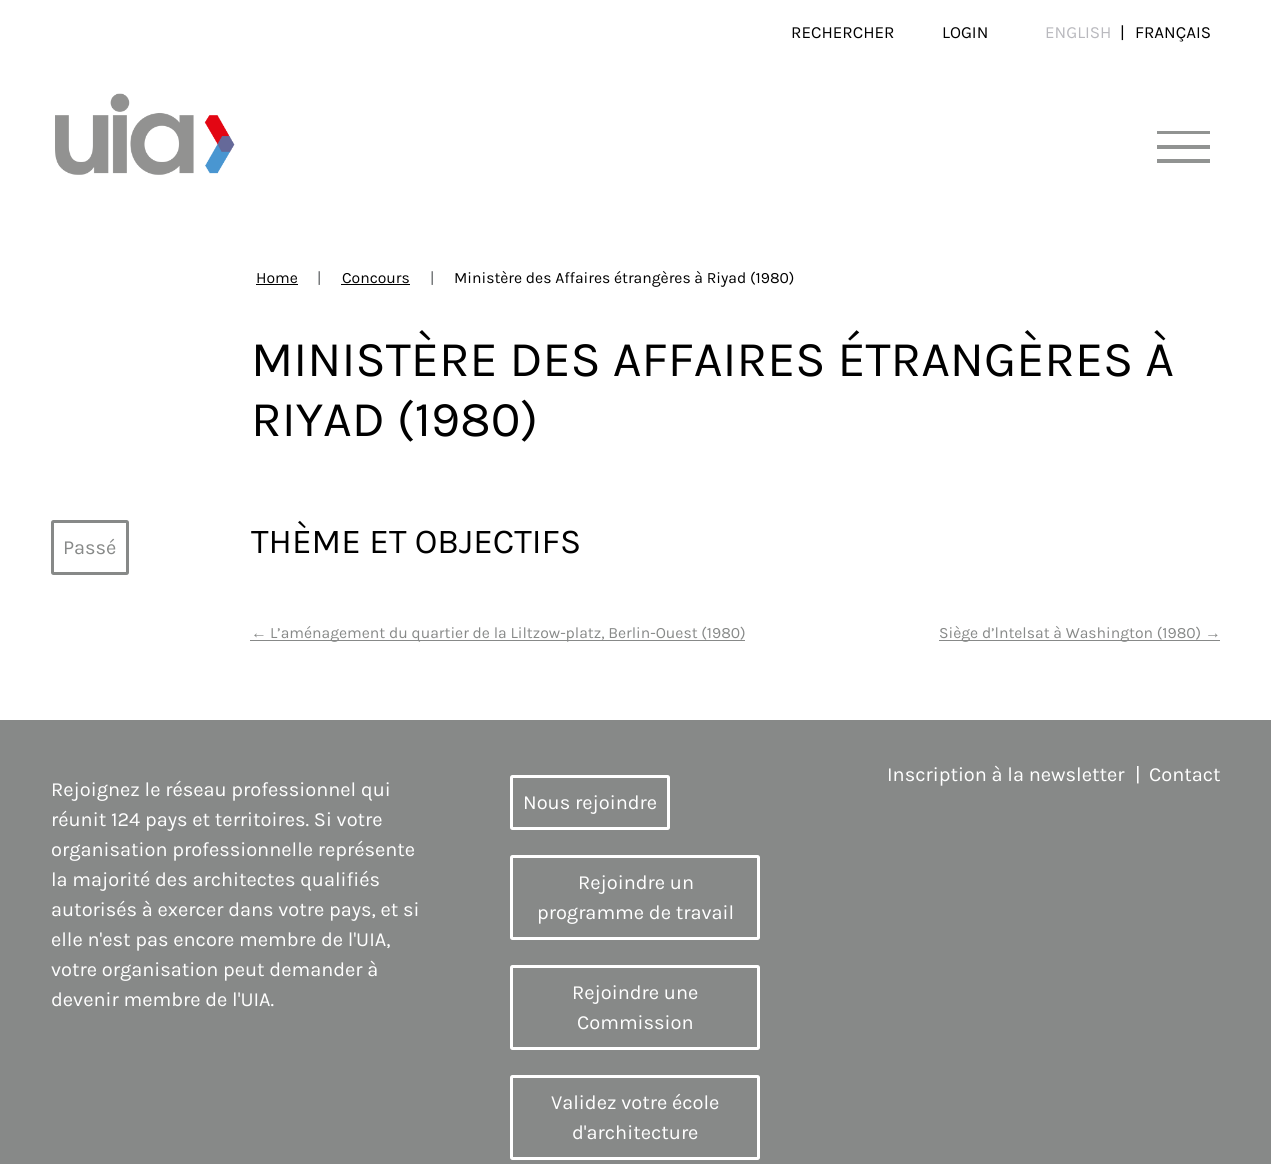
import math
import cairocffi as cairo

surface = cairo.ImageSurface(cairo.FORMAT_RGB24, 1271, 1164)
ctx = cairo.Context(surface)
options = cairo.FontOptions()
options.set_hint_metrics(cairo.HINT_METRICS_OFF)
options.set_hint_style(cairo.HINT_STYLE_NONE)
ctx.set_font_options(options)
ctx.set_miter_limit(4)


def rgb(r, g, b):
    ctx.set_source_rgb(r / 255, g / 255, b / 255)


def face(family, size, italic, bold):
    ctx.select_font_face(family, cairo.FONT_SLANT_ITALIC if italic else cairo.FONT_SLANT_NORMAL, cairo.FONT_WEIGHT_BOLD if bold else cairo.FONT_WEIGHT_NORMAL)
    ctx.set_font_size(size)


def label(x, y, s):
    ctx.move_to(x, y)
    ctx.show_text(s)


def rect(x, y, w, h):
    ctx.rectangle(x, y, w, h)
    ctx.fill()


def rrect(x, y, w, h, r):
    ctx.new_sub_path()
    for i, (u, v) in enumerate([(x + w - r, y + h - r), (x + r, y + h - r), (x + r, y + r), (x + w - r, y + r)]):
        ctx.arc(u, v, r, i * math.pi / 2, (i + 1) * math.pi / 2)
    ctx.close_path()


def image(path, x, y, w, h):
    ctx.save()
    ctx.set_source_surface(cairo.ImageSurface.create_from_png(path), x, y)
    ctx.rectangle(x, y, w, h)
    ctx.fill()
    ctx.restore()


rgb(255, 255, 255)
ctx.paint()
face('Karla', 17, 0, 0)
rgb(0, 0, 0)
label(791, 38, 'RECHERCHER')
label(942, 38, 'LOGIN')
rgb(185, 185, 190)
label(1045, 38, 'ENGLISH')
rgb(0, 0, 0)
label(1120, 38, '|')
label(1135, 38, 'FRANÇAIS')
image('image0.png', 55, 93, 180, 82)
rgb(145, 147, 146)
rect(1157, 131, 53, 3)
rect(1157, 145, 53, 4)
rect(1157, 159, 53, 4)
face('Karla', 15.7, 0, 0)
rgb(0, 0, 0)
label(256, 283, 'Home')
rect(256, 284, 42, 1)
rgb(89, 92, 95)
label(317, 283, '|')
rgb(0, 0, 0)
label(342, 283, 'Concours')
rect(341, 284, 69, 1)
rgb(89, 92, 95)
label(430, 283, '|')
rgb(0, 0, 0)
label(454, 283, 'Ministère des Affaires étrangères à Riyad (1980)')
face('Karla', 50, 0, 0)
label(251, 376, 'MINISTÈRE DES AFFAIRES ÉTRANGÈRES À')
label(251, 436, 'RIYAD (1980)')
rrect(52.5, 521.5, 75, 52, 1)
rgb(135, 137, 136)
ctx.set_line_width(3)
ctx.stroke()
face('Karla', 20, 0, 0)
label(63, 554, 'Passé')
face('Karla', 35, 0, 0)
rgb(0, 0, 0)
label(251, 553, 'THÈME ET OBJECTIFS')
face('Liberation Sans', 15.7, 0, 0)
rgb(135, 137, 136)
label(251, 638, '←')
rect(250, 640, 495, 1)
face('Karla', 15.7, 0, 0)
label(270, 638, 'L’aménagement du quartier de la Liltzow-platz, Berlin-Ouest (1980)')
rect(939, 640, 281, 1)
label(939, 638, 'Siège d’lntelsat à Washington (1980)')
face('Liberation Sans', 15.7, 0, 0)
label(1205, 638, '→')
rect(0, 720, 1271, 444)
face('Karla', 20, 0, 0)
rgb(255, 255, 255)
label(887, 781, 'Inscription à la newsletter')
label(1135, 781, '|')
label(1149, 781, 'Contact')
label(51, 796, 'Rejoignez le réseau professionnel qui')
label(51, 826, 'réunit 124 pays et territoires. Si votre')
label(51, 856, 'organisation professionnelle représente')
label(51, 886, 'la majorité des architectes qualifiés')
label(51, 916, 'autorisés à exercer dans votre pays, et si')
label(51, 946, 'elle n\'est pas encore membre de l\'UIA,')
label(51, 976, 'votre organisation peut demander à')
label(51, 1006, 'devenir membre de l\'UIA.')
rrect(511.5, 776.5, 157, 52, 1)
ctx.stroke()
label(523, 809, 'Nous rejoindre')
rrect(511.5, 856.5, 247, 82, 1)
ctx.stroke()
label(578, 889, 'Rejoindre un')
label(537, 919, 'programme de travail')
rrect(511.5, 966.5, 247, 82, 1)
ctx.stroke()
label(572, 999, 'Rejoindre une')
label(577, 1029, 'Commission')
rrect(511.5, 1076.5, 247, 82, 1)
ctx.stroke()
label(551, 1109, 'Validez votre école')
label(572, 1139, 'd\'architecture')
surface.write_to_png('render.png')
